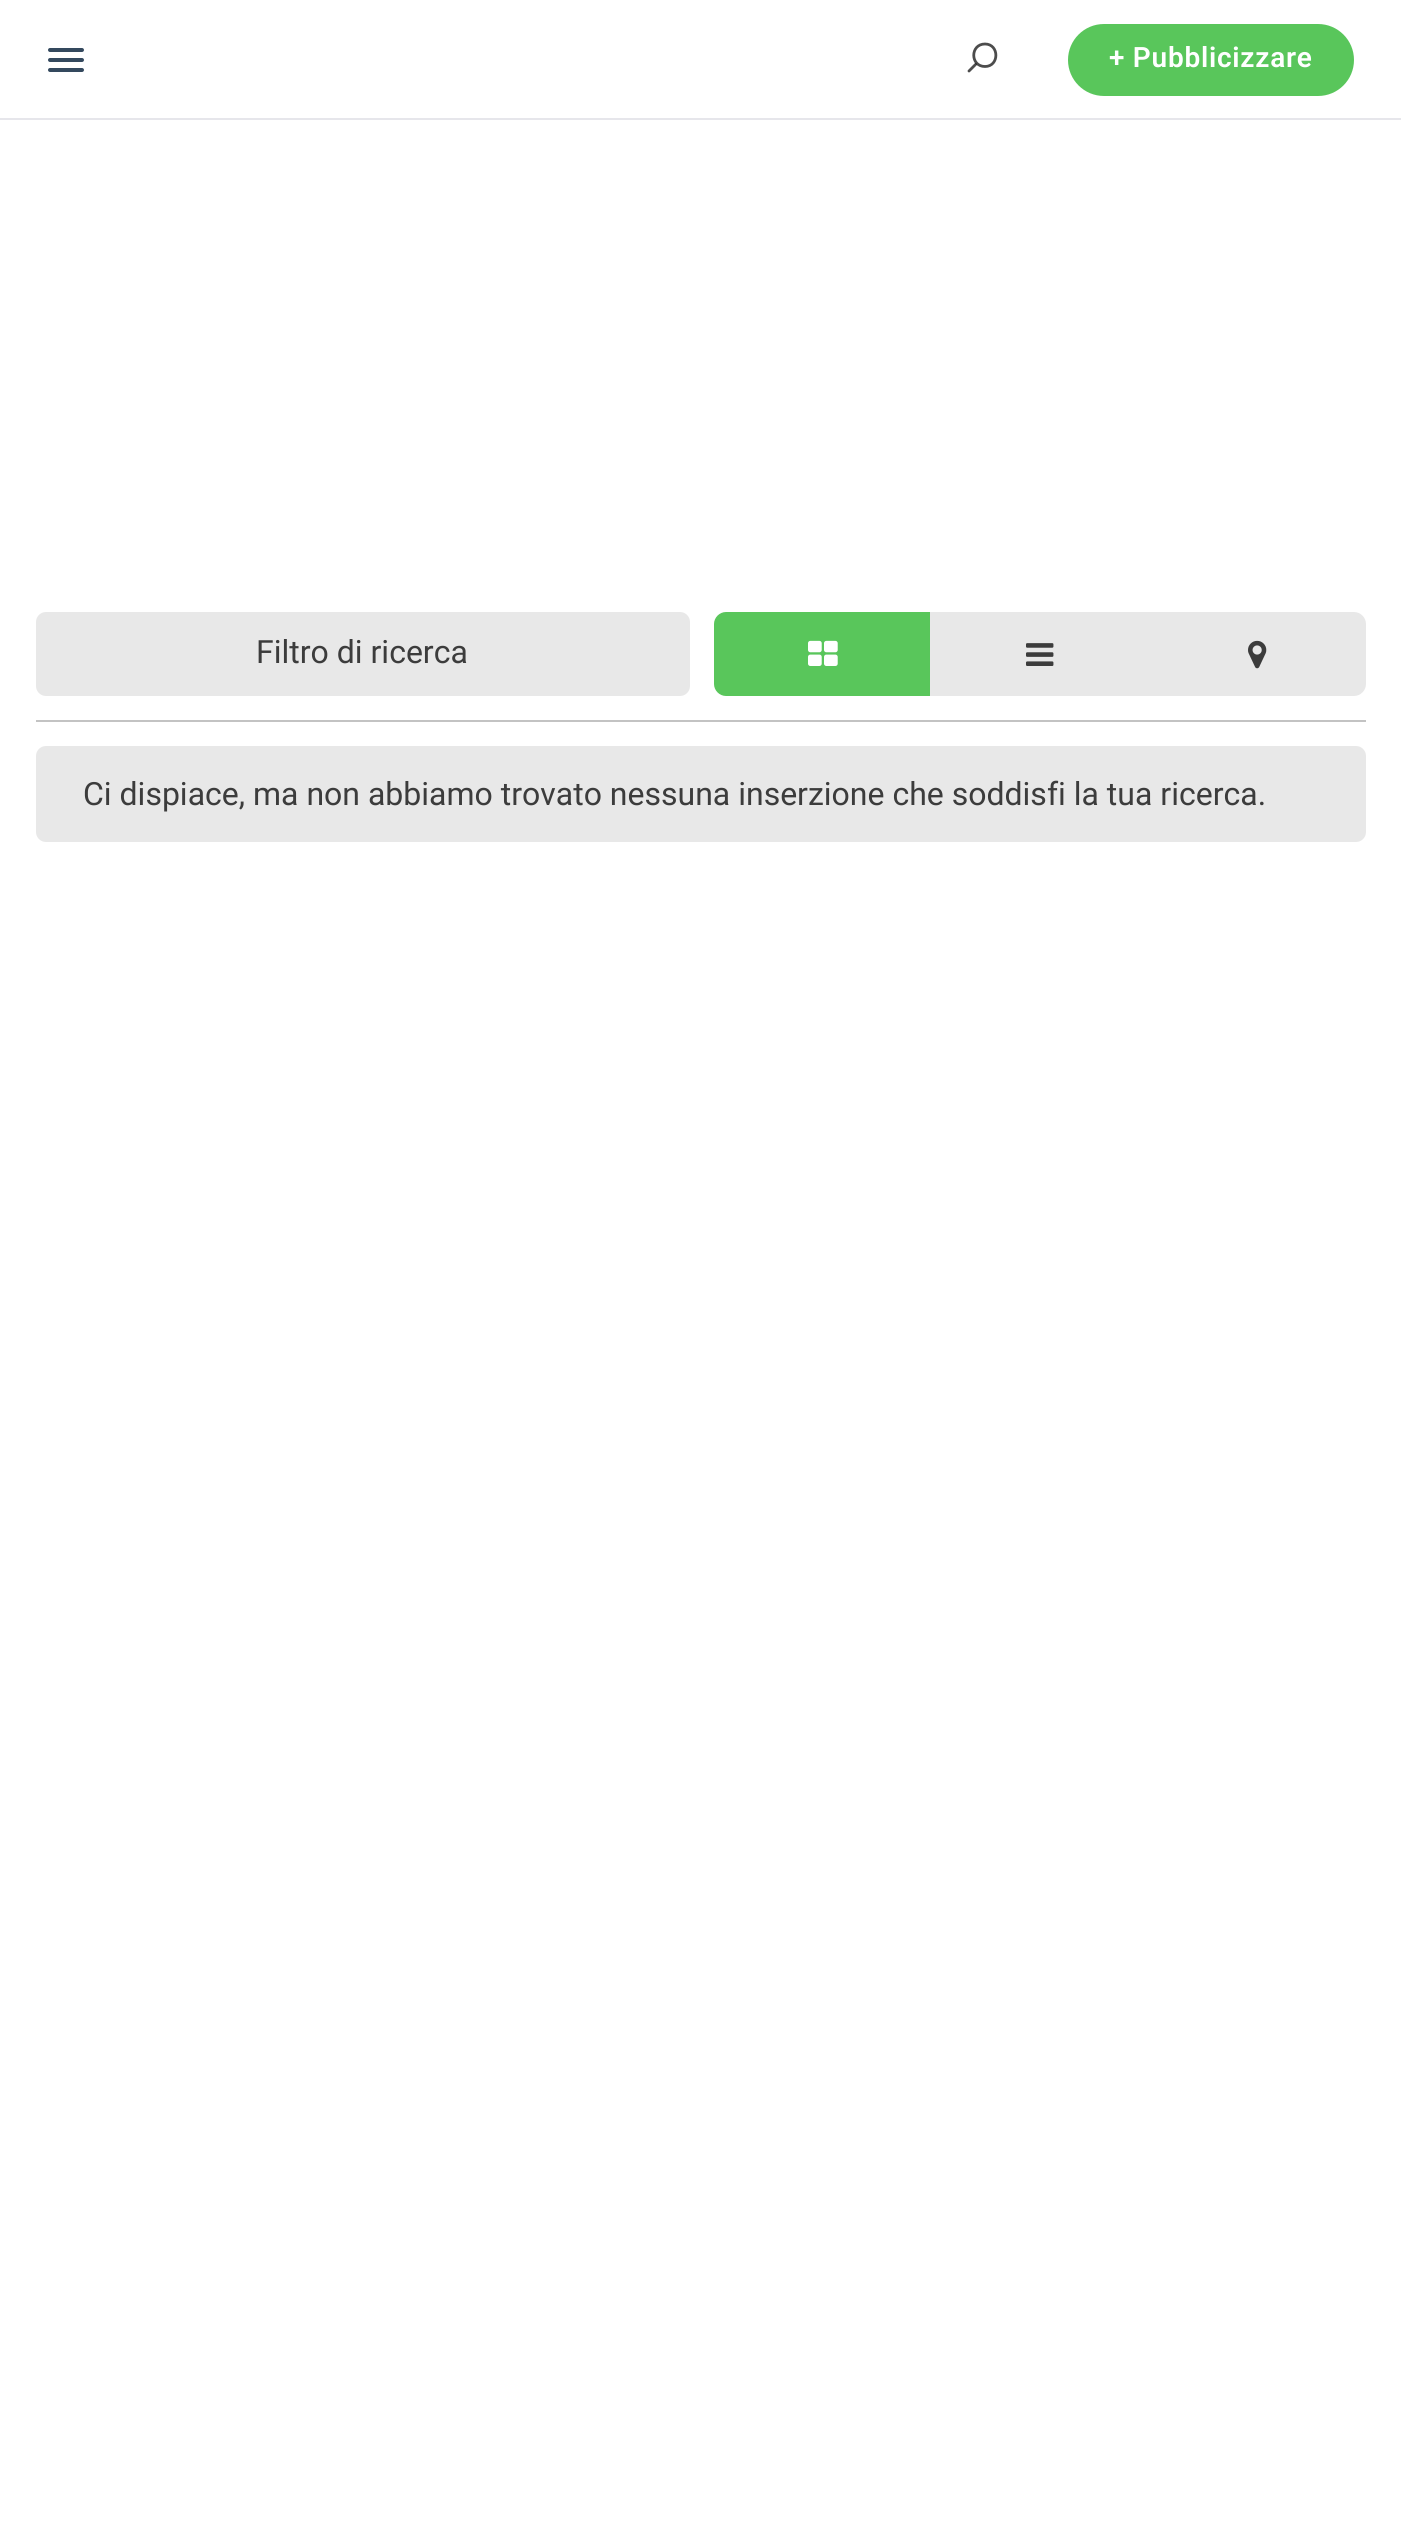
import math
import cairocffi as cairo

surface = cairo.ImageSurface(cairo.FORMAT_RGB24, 1401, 2534)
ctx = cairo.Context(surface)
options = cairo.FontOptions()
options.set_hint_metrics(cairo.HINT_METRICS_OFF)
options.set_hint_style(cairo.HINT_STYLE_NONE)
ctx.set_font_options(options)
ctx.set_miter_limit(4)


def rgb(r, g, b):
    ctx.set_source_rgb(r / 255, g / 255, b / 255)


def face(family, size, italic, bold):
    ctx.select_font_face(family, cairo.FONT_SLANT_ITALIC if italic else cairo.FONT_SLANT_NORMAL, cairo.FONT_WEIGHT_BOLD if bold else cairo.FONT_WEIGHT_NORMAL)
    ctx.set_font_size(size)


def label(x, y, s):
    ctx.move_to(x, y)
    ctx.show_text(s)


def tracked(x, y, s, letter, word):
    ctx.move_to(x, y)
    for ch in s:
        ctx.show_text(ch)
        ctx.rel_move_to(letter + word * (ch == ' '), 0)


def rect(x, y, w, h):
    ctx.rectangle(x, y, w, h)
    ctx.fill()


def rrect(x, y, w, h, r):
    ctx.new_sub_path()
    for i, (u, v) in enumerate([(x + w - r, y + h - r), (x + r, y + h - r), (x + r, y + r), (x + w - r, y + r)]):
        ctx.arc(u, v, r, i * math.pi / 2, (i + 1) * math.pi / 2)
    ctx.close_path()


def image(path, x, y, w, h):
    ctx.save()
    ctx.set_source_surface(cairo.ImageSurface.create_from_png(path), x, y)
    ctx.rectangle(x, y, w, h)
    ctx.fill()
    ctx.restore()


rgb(255, 255, 255)
ctx.paint()
rgb(230, 230, 235)
rect(0, 118, 1401, 2)
rgb(52, 73, 94)
rrect(48, 48, 36, 4, 2)
ctx.fill()
rrect(48, 58, 36, 4, 2)
ctx.fill()
rrect(48, 68, 36, 4, 2)
ctx.fill()
ctx.new_path()
ctx.move_to(975.5, 64.5)
ctx.line_to(969, 71)
rgb(77, 77, 77)
ctx.set_line_width(2.8)
ctx.set_line_cap(cairo.LINE_CAP_ROUND)
ctx.set_line_join(cairo.LINE_JOIN_ROUND)
ctx.stroke()
ctx.new_path()
ctx.move_to(985, 44)
ctx.curve_to(970, 44, 970, 66.5, 985, 66.5)
ctx.curve_to(999.5, 66.5, 999.5, 44, 985, 44)
ctx.close_path()
ctx.set_source_rgba(0, 0, 0, 0.7)
ctx.stroke()
rgb(89, 198, 91)
rrect(1068, 24, 286, 72, 36)
ctx.fill()
face('Roboto SemiBold', 28, 0, 0)
rgb(255, 255, 255)
tracked(1109, 67, '+ Pubblicizzare', 0.75, 0)
rgb(195, 195, 195)
rect(36, 720, 1330, 2)
rgb(232, 232, 232)
rrect(36, 612, 654, 84, 10)
ctx.fill()
face('Roboto', 32, 0, 0)
rgb(60, 60, 60)
label(256, 663, 'Filtro di ricerca')
rgb(89, 198, 91)
ctx.new_path()
ctx.move_to(726, 612)
ctx.line_to(930, 612)
ctx.line_to(930, 696)
ctx.line_to(726, 696)
ctx.curve_to(719.5, 696, 714, 690.5, 714, 684)
ctx.line_to(714, 624)
ctx.curve_to(714, 617.5, 719.5, 612, 726, 612)
ctx.close_path()
ctx.fill()
image('image0.png', 808, 640, 30, 26)
rgb(232, 232, 232)
rect(930, 612, 218, 84)
image('image1.png', 1026, 643, 28, 23)
ctx.new_path()
ctx.move_to(1148, 612)
ctx.line_to(1354, 612)
ctx.curve_to(1360.5, 612, 1366, 617.5, 1366, 624)
ctx.line_to(1366, 684)
ctx.curve_to(1366, 690.5, 1360.5, 696, 1354, 696)
ctx.line_to(1148, 696)
ctx.close_path()
ctx.fill()
image('image2.png', 1248, 640, 19, 29)
rrect(36, 746, 1330, 96, 10)
ctx.fill()
rgb(60, 60, 60)
label(83, 805, 'Ci dispiace, ma non abbiamo trovato nessuna inserzione che soddisfi la tua ricerca.')
surface.write_to_png('render.png')
